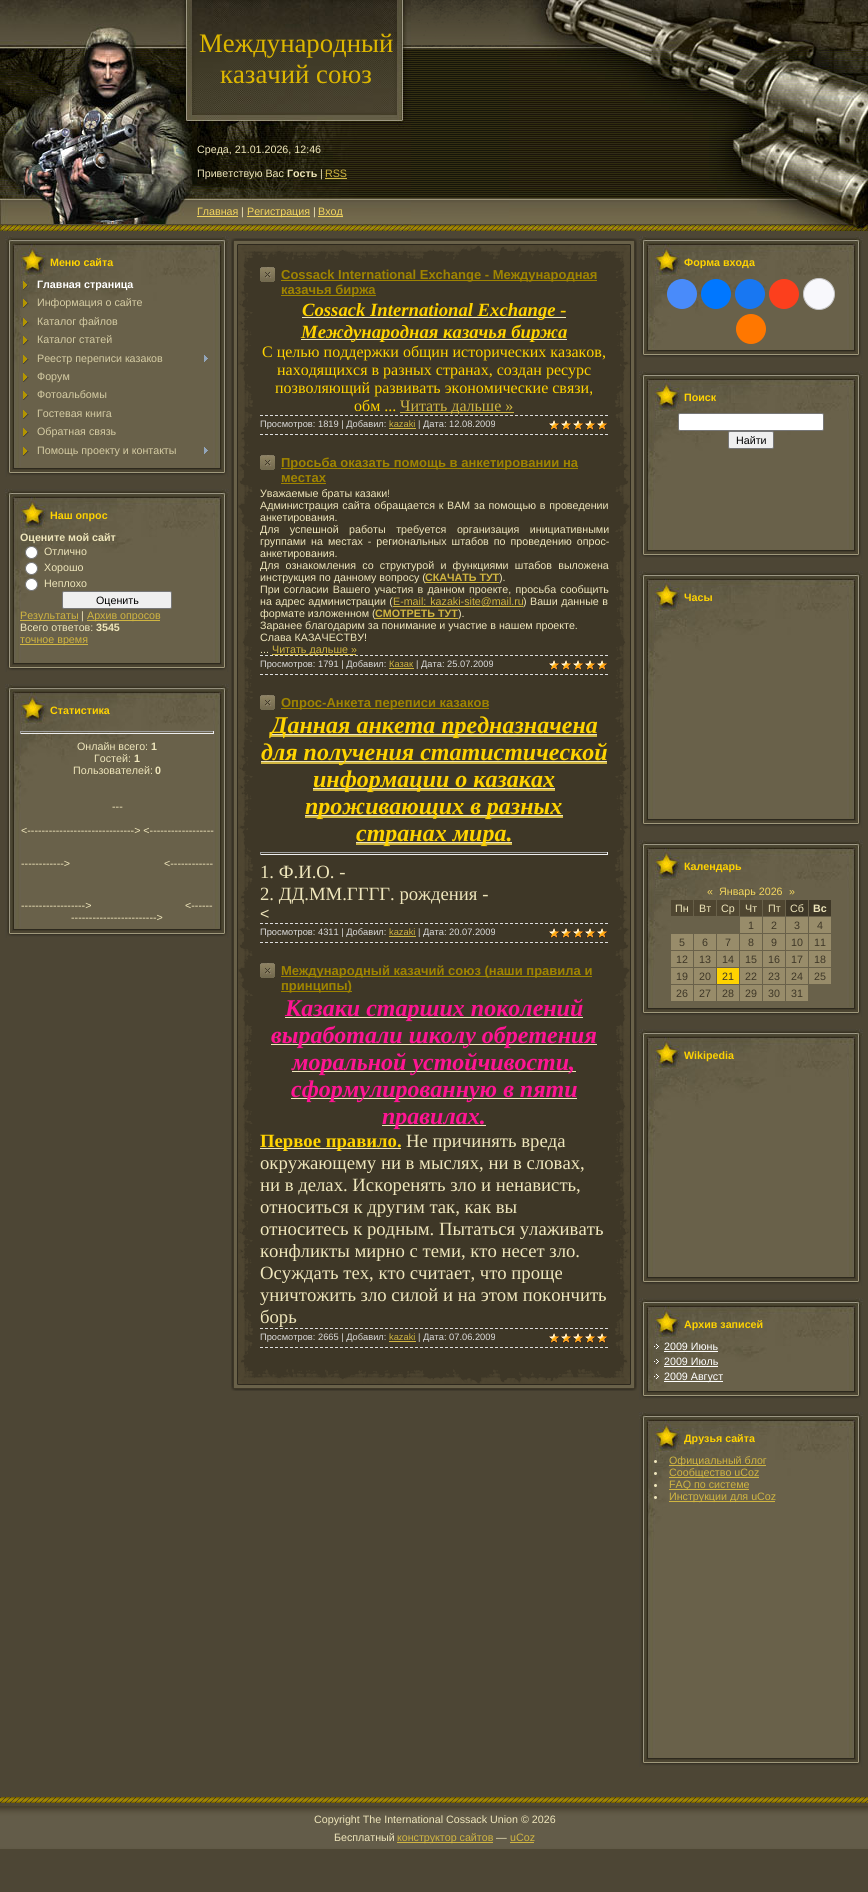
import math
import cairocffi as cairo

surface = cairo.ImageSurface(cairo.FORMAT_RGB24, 868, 1892)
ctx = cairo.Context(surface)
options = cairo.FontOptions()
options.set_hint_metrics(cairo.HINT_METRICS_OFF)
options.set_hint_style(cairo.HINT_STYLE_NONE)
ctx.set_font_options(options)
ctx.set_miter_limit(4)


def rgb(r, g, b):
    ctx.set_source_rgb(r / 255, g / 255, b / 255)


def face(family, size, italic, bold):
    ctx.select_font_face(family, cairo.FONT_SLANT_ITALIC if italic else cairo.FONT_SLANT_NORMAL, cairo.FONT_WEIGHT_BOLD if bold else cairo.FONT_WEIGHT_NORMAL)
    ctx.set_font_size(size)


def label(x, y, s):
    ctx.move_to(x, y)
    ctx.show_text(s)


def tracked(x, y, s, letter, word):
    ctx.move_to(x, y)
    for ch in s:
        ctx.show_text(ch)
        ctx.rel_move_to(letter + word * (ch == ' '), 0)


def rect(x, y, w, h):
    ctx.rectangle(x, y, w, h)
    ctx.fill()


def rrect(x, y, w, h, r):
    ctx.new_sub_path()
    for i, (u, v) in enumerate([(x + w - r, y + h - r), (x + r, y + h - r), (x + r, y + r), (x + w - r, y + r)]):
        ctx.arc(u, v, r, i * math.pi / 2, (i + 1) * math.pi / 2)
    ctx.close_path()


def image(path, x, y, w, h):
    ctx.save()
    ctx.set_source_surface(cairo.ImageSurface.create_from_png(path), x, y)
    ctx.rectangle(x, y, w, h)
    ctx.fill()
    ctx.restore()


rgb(77, 70, 53)
ctx.paint()
image('image0.png', 411, 0, 98, 231)
image('image1.png', 0, 0, 197, 231)
image('image2.png', 197, 0, 214, 231)
face('Liberation Serif', 26.75, 0, 0)
rgb(221, 183, 0)
label(199, 52, 'Международный')
label(220, 83, 'казачий союз')
face('Liberation Sans', 10.7, 0, 0)
rgb(239, 230, 187)
label(197, 153, 'Среда, 21.01.2026, 12:46')
label(197, 177, 'Приветствую Вас')
face('Liberation Sans', 10.7, 0, 1)
label(287, 177, 'Гость')
face('Liberation Sans', 10.7, 0, 0)
label(320, 177, '|')
rgb(208, 181, 65)
label(325, 177, 'RSS')
rect(325, 178, 22, 1)
rgb(243, 214, 94)
label(197, 215, 'Главная')
rect(197, 216, 41, 1)
rgb(239, 230, 187)
label(241, 215, '|')
rgb(243, 214, 94)
rect(247, 216, 63, 1)
label(247, 215, 'Регистрация')
rgb(239, 230, 187)
label(313, 215, '|')
rgb(243, 214, 94)
rect(318, 216, 25, 1)
label(318, 215, 'Вход')
image('image3.png', 509, 0, 359, 231)
image('image4.png', 5, 236, 224, 241)
face('Liberation Sans', 10.7, 0, 1)
rgb(255, 211, 0)
label(50, 266, 'Меню сайта')
image('image5.png', 23, 281, 5, 9)
rgb(255, 255, 255)
label(37, 288, 'Главная страница')
image('image6.png', 23, 299, 6, 9)
face('Liberation Sans', 10.7, 0, 0)
rgb(213, 204, 163)
label(37, 306, 'Информация о сайте')
image('image7.png', 23, 318, 6, 9)
label(37, 325, 'Каталог файлов')
image('image8.png', 23, 336, 6, 9)
label(37, 343, 'Каталог статей')
image('image9.png', 23, 355, 6, 9)
label(37, 362, 'Реестр переписи казаков')
image('image10.png', 204, 355, 4, 7)
image('image9.png', 23, 373, 6, 9)
label(37, 380, 'Форум')
image('image9.png', 23, 391, 6, 9)
label(37, 398, 'Фотоальбомы')
image('image9.png', 23, 410, 6, 9)
label(37, 417, 'Гостевая книга')
image('image9.png', 23, 428, 6, 9)
label(37, 435, 'Обратная связь')
image('image9.png', 23, 447, 6, 9)
label(37, 454, 'Помощь проекту и контакты')
image('image10.png', 204, 447, 4, 7)
image('image11.png', 7, 467, 220, 10)
image('image12.png', 5, 489, 224, 183)
face('Liberation Sans', 10.7, 0, 1)
rgb(255, 211, 0)
label(50, 519, 'Наш опрос')
rgb(239, 230, 187)
label(20, 541, 'Оцените мой сайт')
rgb(255, 255, 255)
ctx.new_path()
ctx.arc(31.5, 552.5, 6, 0, 2 * math.pi)
ctx.fill_preserve()
rgb(118, 118, 118)
ctx.set_line_width(1)
ctx.stroke()
face('Liberation Sans', 10.7, 0, 0)
rgb(239, 230, 187)
label(44, 555, 'Отлично')
rgb(255, 255, 255)
ctx.new_path()
ctx.arc(31.5, 568.5, 6, 0, 2 * math.pi)
ctx.fill_preserve()
rgb(118, 118, 118)
ctx.stroke()
rgb(239, 230, 187)
label(44, 571, 'Хорошо')
rgb(255, 255, 255)
ctx.new_path()
ctx.arc(31.5, 584.5, 6, 0, 2 * math.pi)
ctx.fill_preserve()
rgb(118, 118, 118)
ctx.stroke()
rgb(239, 230, 187)
label(44, 587, 'Неплохо')
rgb(239, 239, 239)
rrect(62.5, 591.5, 109, 17, 1.5)
ctx.fill_preserve()
rgb(118, 118, 118)
ctx.stroke()
rgb(0, 0, 0)
label(96, 604, 'Оценить')
rgb(208, 181, 65)
rect(20, 620, 58, 1)
label(20, 619, 'Результаты')
rgb(239, 230, 187)
label(81, 619, '|')
rgb(208, 181, 65)
rect(87, 620, 73, 1)
label(87, 619, 'Архив опросов')
rgb(239, 230, 187)
label(20, 631, 'Всего ответов:')
face('Liberation Sans', 10.7, 0, 1)
label(96, 631, '3545')
rgb(208, 181, 65)
rect(20, 644, 68, 1)
face('Liberation Sans', 10.7, 0, 0)
label(20, 643, 'точное время')
image('image11.png', 7, 662, 220, 10)
image('image13.png', 5, 684, 224, 254)
face('Liberation Sans', 10.7, 0, 1)
rgb(255, 211, 0)
label(50, 714, 'Статистика')
rgb(159, 159, 159)
rect(20, 731, 194, 1)
rgb(238, 238, 238)
rect(213, 731, 1, 3)
rect(20, 733, 194, 1)
rgb(159, 159, 159)
rect(20, 731, 1, 3)
face('Liberation Sans', 10.7, 0, 0)
rgb(239, 230, 187)
label(77, 750, 'Онлайн всего:')
face('Liberation Sans', 10.7, 0, 1)
label(151, 750, '1')
face('Liberation Sans', 10.7, 0, 0)
label(94, 762, 'Гостей:')
face('Liberation Sans', 10.7, 0, 1)
label(134, 762, '1')
face('Liberation Sans', 10.7, 0, 0)
label(73, 774, 'Пользователей:')
face('Liberation Sans', 10.7, 0, 1)
label(155, 774, '0')
face('Liberation Sans', 10.7, 0, 0)
label(112, 810, '---')
label(21, 834, '<------------------------------> <------------------')
label(21, 867, '------------>')
label(164, 867, '<------------')
label(21, 909, '------------------>')
label(185, 909, '<------')
label(71, 921, '------------------------>')
image('image11.png', 7, 928, 220, 10)
image('image14.png', 231, 238, 26, 26)
image('image15.png', 257, 238, 354, 26)
image('image16.png', 611, 238, 26, 26)
image('image17.png', 231, 264, 26, 1101)
rgb(62, 55, 39)
rect(257, 264, 354, 1101)
image('image18.png', 260, 267, 15, 15)
rgb(159, 132, 0)
rect(281, 280, 316, 1)
face('Liberation Sans', 13, 0, 1)
label(281, 279, 'Cossack International Exchange - Международная')
rect(281, 295, 95, 1)
label(281, 294, 'казачья биржа')
rgb(239, 230, 187)
rect(302, 317, 264, 1)
face('Liberation Serif', 18.7, 1, 1)
rgb(255, 211, 0)
label(302, 316, 'Cossack International Exchange -')
rgb(239, 230, 187)
rect(301, 339, 266, 1)
rgb(255, 211, 0)
label(301, 338, 'Международная казачья биржа')
face('Liberation Serif', 16, 0, 0)
label(262, 357, 'С целью поддержки общин исторических казаков,')
label(277, 375, 'находящихся в разных странах, создан ресурс')
label(275, 393, 'позволяющий развивать экономические связи,')
label(354, 411, 'обм ...')
rgb(208, 181, 65)
rect(400, 412, 114, 1)
label(400, 411, 'Читать дальше »')
ctx.new_path()
ctx.move_to(260, 415.5)
ctx.line_to(608, 415.5)
rgb(221, 221, 221)
ctx.set_dash([3, 2])
ctx.stroke()
ctx.new_path()
ctx.move_to(260, 434.5)
ctx.line_to(608, 434.5)
ctx.stroke()
face('Liberation Sans', 9.3, 0, 0)
label(260, 427, 'Просмотров: 1819 | Добавил:')
rgb(208, 181, 65)
label(389, 427, 'kazaki')
rect(389, 428, 27, 1)
rgb(221, 221, 221)
label(418, 427, '| Дата: 12.08.2009')
image('image19.png', 549, 420, 58, 10)
image('image20.png', 548, 419, 60, 12)
image('image18.png', 260, 455, 15, 15)
rgb(159, 132, 0)
rect(281, 468, 297, 1)
face('Liberation Sans', 13, 0, 1)
label(281, 467, 'Просьба оказать помощь в анкетировании на')
label(281, 482, 'местах')
rect(281, 483, 45, 1)
face('Liberation Sans', 10.7, 0, 0)
rgb(239, 230, 187)
label(260, 497, 'Уважаемые браты казаки!')
tracked(260, 509, 'Администрация сайта обращается к ВАМ за помощью в проведении', 0, 0.75)
label(260, 521, 'анкетирования.')
tracked(260, 533, 'Для успешной работы требуется организация инициативными', 0, 7.5)
tracked(260, 545, 'группами на местах - региональных штабов по проведению опрос-', 0, 2)
label(260, 557, 'анкетирования.')
tracked(260, 569, 'Для ознакомления со структурой и функциями штабов выложена', 0, 3.25)
label(260, 581, 'инструкция по данному вопросу (')
face('Liberation Sans', 10.7, 0, 1)
rgb(208, 181, 65)
label(425, 581, 'СКАЧАТЬ ТУТ')
rect(425, 582, 74, 1)
face('Liberation Sans', 10.7, 0, 0)
rgb(239, 230, 187)
label(499, 581, ').')
tracked(260, 593, 'При согласии Вашего участия в данном проекте, просьба сообщить', 0, 1.25)
tracked(260, 605, 'на адрес администрации (', 0, 0.5)
rgb(208, 181, 65)
rect(393, 606, 130, 1)
tracked(393, 605, 'E-mail: kazaki-site@mail.ru', 0, 1)
rgb(239, 230, 187)
tracked(523, 605, ') Ваши данные в', 0, 0.5)
label(260, 617, 'формате изложенном (')
face('Liberation Sans', 10.7, 0, 1)
rgb(208, 181, 65)
label(375, 617, 'СМОТРЕТЬ ТУТ')
rect(375, 618, 83, 1)
face('Liberation Sans', 10.7, 0, 0)
rgb(239, 230, 187)
label(458, 617, ').')
label(260, 629, 'Заранее благодарим за понимание и участие в нашем проекте.')
label(260, 641, 'Слава КАЗАЧЕСТВУ!')
label(260, 653, '...')
rgb(208, 181, 65)
rect(272, 654, 84, 1)
ctx.new_path()
ctx.move_to(260, 655.5)
ctx.line_to(608, 655.5)
rgb(221, 221, 221)
ctx.stroke()
rgb(208, 181, 65)
label(272, 653, 'Читать дальше »')
ctx.new_path()
ctx.move_to(260, 674.5)
ctx.line_to(608, 674.5)
rgb(221, 221, 221)
ctx.stroke()
face('Liberation Sans', 9.3, 0, 0)
label(260, 667, 'Просмотров: 1791 | Добавил:')
rgb(208, 181, 65)
label(389, 667, 'Казак')
rect(389, 668, 25, 1)
rgb(221, 221, 221)
label(416, 667, '| Дата: 25.07.2009')
image('image19.png', 549, 660, 58, 10)
image('image20.png', 548, 659, 60, 12)
image('image18.png', 260, 695, 15, 15)
rgb(159, 132, 0)
rect(281, 708, 208, 1)
face('Liberation Sans', 13, 0, 1)
label(281, 707, 'Опрос-Анкета переписи казаков')
rgb(208, 181, 65)
rect(271, 735, 326, 2)
rgb(239, 230, 187)
rect(271, 734, 326, 1)
face('Liberation Serif', 24, 1, 1)
rgb(255, 211, 0)
label(271, 733, 'Данная анкета предназначена')
rgb(208, 181, 65)
rect(261, 762, 346, 2)
rgb(239, 230, 187)
rect(261, 761, 346, 1)
rgb(255, 211, 0)
label(261, 760, 'для получения статистической')
rgb(208, 181, 65)
rect(313, 789, 242, 2)
rgb(239, 230, 187)
rect(313, 788, 242, 1)
rgb(255, 211, 0)
label(313, 787, 'информации о казаках')
rgb(208, 181, 65)
rect(305, 816, 258, 2)
rgb(239, 230, 187)
rect(305, 815, 258, 1)
rgb(255, 211, 0)
label(305, 814, 'проживающих в разных')
rgb(208, 181, 65)
rect(356, 843, 156, 2)
rgb(239, 230, 187)
rect(356, 842, 156, 1)
rgb(255, 211, 0)
label(356, 841, 'странах мира.')
rgb(159, 159, 159)
rect(260, 852, 348, 1)
rgb(238, 238, 238)
rect(607, 852, 1, 3)
rect(260, 854, 348, 1)
rgb(159, 159, 159)
rect(260, 852, 1, 3)
face('Liberation Serif', 18.7, 0, 0)
rgb(239, 230, 187)
label(260, 878, '1. Ф.И.О. -')
label(260, 900, '2. ДД.ММ.ГГГГ. рождения -')
face('Liberation Sans', 16, 0, 0)
label(260, 919, '<')
ctx.new_path()
ctx.move_to(260, 923.5)
ctx.line_to(608, 923.5)
rgb(221, 221, 221)
ctx.stroke()
ctx.new_path()
ctx.move_to(260, 942.5)
ctx.line_to(608, 942.5)
ctx.stroke()
face('Liberation Sans', 9.3, 0, 0)
label(260, 935, 'Просмотров: 4311 | Добавил:')
rgb(208, 181, 65)
label(389, 935, 'kazaki')
rect(389, 936, 27, 1)
rgb(221, 221, 221)
label(418, 935, '| Дата: 20.07.2009')
image('image19.png', 549, 928, 58, 10)
image('image20.png', 548, 927, 60, 12)
image('image18.png', 260, 963, 15, 15)
rgb(159, 132, 0)
rect(281, 976, 311, 1)
face('Liberation Sans', 13, 0, 1)
label(281, 975, 'Международный казачий союз (наши правила и')
rect(281, 991, 71, 1)
label(281, 990, 'принципы)')
rgb(239, 230, 187)
rect(285, 1017, 298, 1)
face('Liberation Serif', 24, 1, 1)
rgb(255, 20, 147)
label(285, 1016, 'Казаки старших поколений')
rgb(239, 230, 187)
rect(271, 1044, 326, 1)
rgb(255, 20, 147)
label(271, 1043, 'выработали школу обретения')
rgb(239, 230, 187)
rect(292, 1071, 284, 1)
rgb(255, 20, 147)
label(292, 1070, 'моральной устойчивости,')
rgb(239, 230, 187)
rect(291, 1098, 286, 1)
rgb(255, 20, 147)
label(291, 1097, 'сформулированную в пяти')
rgb(239, 230, 187)
rect(382, 1125, 104, 1)
rgb(255, 20, 147)
label(382, 1124, 'правилах.')
rgb(239, 230, 187)
rect(260, 1148, 141, 1)
face('Liberation Serif', 18.7, 0, 1)
rgb(255, 211, 0)
label(260, 1147, 'Первое правило.')
face('Liberation Serif', 18.7, 0, 0)
rgb(239, 230, 187)
label(406, 1147, 'Не причинять вреда')
label(260, 1169, 'окружающему ни в мыслях, ни в словах,')
label(260, 1191, 'ни в делах. Искоренять зло и ненависть,')
label(260, 1213, 'относиться к другим так, как вы')
label(260, 1235, 'относитесь к родным. Пытаться улаживать')
label(260, 1257, 'конфликты мирно с теми, кто несет зло.')
label(260, 1279, 'Осуждать тех, кто считает, что проще')
label(260, 1301, 'уничтожить зло силой и на этом покончить')
label(260, 1323, 'борь')
ctx.new_path()
ctx.move_to(260, 1328.5)
ctx.line_to(608, 1328.5)
rgb(221, 221, 221)
ctx.stroke()
ctx.new_path()
ctx.move_to(260, 1347.5)
ctx.line_to(608, 1347.5)
ctx.stroke()
face('Liberation Sans', 9.3, 0, 0)
label(260, 1340, 'Просмотров: 2665 | Добавил:')
rgb(208, 181, 65)
label(389, 1340, 'kazaki')
rect(389, 1341, 27, 1)
rgb(221, 221, 221)
label(418, 1340, '| Дата: 07.06.2009')
image('image19.png', 549, 1333, 58, 10)
image('image20.png', 548, 1332, 60, 12)
image('image21.png', 611, 264, 26, 1101)
image('image22.png', 231, 1365, 26, 26)
image('image23.png', 257, 1365, 354, 26)
image('image24.png', 611, 1365, 26, 26)
image('image25.png', 639, 236, 224, 123)
face('Liberation Sans', 10.7, 0, 1)
rgb(255, 211, 0)
label(684, 266, 'Форма входа')
rgb(73, 139, 250)
ctx.new_path()
ctx.arc(682, 294, 15, 0, 2 * math.pi)
ctx.fill()
rgb(0, 119, 255)
ctx.arc(716, 294, 15, 0, 2 * math.pi)
ctx.fill()
rgb(24, 119, 242)
ctx.arc(750, 294, 15, 0, 2 * math.pi)
ctx.fill()
rgb(252, 63, 29)
ctx.arc(784, 294, 15, 0, 2 * math.pi)
ctx.fill()
rgb(248, 248, 252)
ctx.arc(819, 294, 15.5, 0, 2 * math.pi)
ctx.fill_preserve()
rgb(196, 196, 196)
ctx.set_dash([])
ctx.stroke()
rgb(255, 119, 0)
ctx.arc(751, 329, 15, 0, 2 * math.pi)
ctx.fill()
image('image11.png', 641, 349, 220, 10)
image('image26.png', 639, 371, 224, 188)
rgb(255, 211, 0)
label(684, 401, 'Поиск')
rgb(255, 255, 255)
rrect(678.5, 413.5, 145, 17, 1.5)
ctx.fill_preserve()
rgb(118, 118, 118)
ctx.stroke()
rgb(239, 239, 239)
rrect(728.5, 431.5, 45, 17, 1.5)
ctx.fill_preserve()
rgb(118, 118, 118)
ctx.stroke()
face('Liberation Sans', 10.7, 0, 0)
rgb(0, 0, 0)
label(736, 444, 'Найти')
image('image11.png', 641, 549, 220, 10)
image('image27.png', 639, 571, 224, 257)
face('Liberation Sans', 10.7, 0, 1)
rgb(255, 211, 0)
label(684, 601, 'Часы')
image('image11.png', 641, 818, 220, 10)
image('image28.png', 639, 840, 224, 177)
label(684, 870, 'Календарь')
face('Liberation Sans', 10.7, 0, 0)
rgb(243, 214, 94)
label(707, 895, '«')
label(719, 895, 'Январь 2026')
label(789, 895, '»')
rgb(79, 70, 49)
rect(671, 900, 22, 16)
rgb(239, 230, 187)
label(675, 912, 'Пн')
rgb(79, 70, 49)
rect(694, 900, 22, 16)
rgb(239, 230, 187)
label(699, 912, 'Вт')
rgb(79, 70, 49)
rect(717, 900, 22, 16)
rgb(239, 230, 187)
label(721, 912, 'Ср')
rgb(79, 70, 49)
rect(740, 900, 22, 16)
rgb(239, 230, 187)
label(745, 912, 'Чт')
rgb(79, 70, 49)
rect(763, 900, 22, 16)
rgb(239, 230, 187)
label(768, 912, 'Пт')
rgb(62, 55, 39)
rect(786, 900, 22, 16)
rgb(239, 230, 187)
label(790, 912, 'Сб')
rgb(62, 55, 39)
rect(809, 900, 22, 16)
face('Liberation Sans', 10.7, 0, 1)
rgb(239, 230, 187)
label(813, 912, 'Вс')
rgb(152, 140, 106)
rect(740, 917, 22, 16)
face('Liberation Sans', 10.7, 0, 0)
rgb(62, 55, 39)
label(748, 929, '1')
rgb(152, 140, 106)
rect(763, 917, 22, 16)
rgb(62, 55, 39)
label(771, 929, '2')
rgb(152, 140, 106)
rect(786, 917, 22, 16)
rgb(62, 55, 39)
label(794, 929, '3')
rgb(152, 140, 106)
rect(809, 917, 22, 16)
rgb(62, 55, 39)
label(817, 929, '4')
rgb(152, 140, 106)
rect(671, 934, 22, 16)
rgb(62, 55, 39)
label(679, 946, '5')
rgb(152, 140, 106)
rect(694, 934, 22, 16)
rgb(62, 55, 39)
label(702, 946, '6')
rgb(152, 140, 106)
rect(717, 934, 22, 16)
rgb(62, 55, 39)
label(725, 946, '7')
rgb(152, 140, 106)
rect(740, 934, 22, 16)
rgb(62, 55, 39)
label(748, 946, '8')
rgb(152, 140, 106)
rect(763, 934, 22, 16)
rgb(62, 55, 39)
label(771, 946, '9')
rgb(152, 140, 106)
rect(786, 934, 22, 16)
rgb(62, 55, 39)
label(791, 946, '10')
rgb(152, 140, 106)
rect(809, 934, 22, 16)
rgb(62, 55, 39)
label(814, 946, '11')
rgb(152, 140, 106)
rect(671, 951, 22, 16)
rgb(62, 55, 39)
label(676, 963, '12')
rgb(152, 140, 106)
rect(694, 951, 22, 16)
rgb(62, 55, 39)
label(699, 963, '13')
rgb(152, 140, 106)
rect(717, 951, 22, 16)
rgb(62, 55, 39)
label(722, 963, '14')
rgb(152, 140, 106)
rect(740, 951, 22, 16)
rgb(62, 55, 39)
label(745, 963, '15')
rgb(152, 140, 106)
rect(763, 951, 22, 16)
rgb(62, 55, 39)
label(768, 963, '16')
rgb(152, 140, 106)
rect(786, 951, 22, 16)
rgb(62, 55, 39)
label(791, 963, '17')
rgb(152, 140, 106)
rect(809, 951, 22, 16)
rgb(62, 55, 39)
label(814, 963, '18')
rgb(152, 140, 106)
rect(671, 968, 22, 16)
rgb(62, 55, 39)
label(676, 980, '19')
rgb(152, 140, 106)
rect(694, 968, 22, 16)
rgb(62, 55, 39)
label(699, 980, '20')
rgb(255, 211, 0)
rect(717, 968, 22, 16)
rgb(62, 55, 39)
label(722, 980, '21')
rgb(152, 140, 106)
rect(740, 968, 22, 16)
rgb(62, 55, 39)
label(745, 980, '22')
rgb(152, 140, 106)
rect(763, 968, 22, 16)
rgb(62, 55, 39)
label(768, 980, '23')
rgb(152, 140, 106)
rect(786, 968, 22, 16)
rgb(62, 55, 39)
label(791, 980, '24')
rgb(152, 140, 106)
rect(809, 968, 22, 16)
rgb(62, 55, 39)
label(814, 980, '25')
rgb(152, 140, 106)
rect(671, 985, 22, 16)
rgb(62, 55, 39)
label(676, 997, '26')
rgb(152, 140, 106)
rect(694, 985, 22, 16)
rgb(62, 55, 39)
label(699, 997, '27')
rgb(152, 140, 106)
rect(717, 985, 22, 16)
rgb(62, 55, 39)
label(722, 997, '28')
rgb(152, 140, 106)
rect(740, 985, 22, 16)
rgb(62, 55, 39)
label(745, 997, '29')
rgb(152, 140, 106)
rect(763, 985, 22, 16)
rgb(62, 55, 39)
label(768, 997, '30')
rgb(152, 140, 106)
rect(786, 985, 22, 16)
rgb(62, 55, 39)
label(791, 997, '31')
image('image11.png', 641, 1007, 220, 10)
image('image27.png', 639, 1029, 224, 257)
face('Liberation Sans', 10.7, 0, 1)
rgb(255, 211, 0)
label(684, 1059, 'Wikipedia')
image('image11.png', 641, 1276, 220, 10)
image('image29.png', 639, 1298, 224, 102)
label(684, 1328, 'Архив записей')
image('image30.png', 654, 1344, 5, 5)
face('Liberation Sans', 10.7, 0, 0)
rgb(255, 255, 255)
label(664, 1350, '2009 Июнь')
rect(664, 1351, 54, 1)
image('image31.png', 654, 1359, 5, 5)
label(664, 1365, '2009 Июль')
rect(664, 1366, 54, 1)
image('image32.png', 654, 1374, 5, 5)
rect(664, 1381, 59, 1)
label(664, 1380, '2009 Август')
image('image11.png', 641, 1390, 220, 10)
image('image33.png', 639, 1412, 224, 355)
face('Liberation Sans', 10.7, 0, 1)
rgb(255, 211, 0)
label(684, 1442, 'Друзья сайта')
rgb(239, 230, 187)
ctx.new_path()
ctx.arc(655.5, 1461.5, 1.5, 0, 2 * math.pi)
ctx.fill()
rgb(208, 181, 65)
rect(669, 1465, 97, 1)
face('Liberation Sans', 10.7, 0, 0)
label(669, 1464, 'Официальный блог')
rgb(239, 230, 187)
ctx.new_path()
ctx.arc(655.5, 1473.5, 1.5, 0, 2 * math.pi)
ctx.fill()
rgb(208, 181, 65)
rect(669, 1477, 90, 1)
label(669, 1476, 'Сообщество uCoz')
rgb(239, 230, 187)
ctx.new_path()
ctx.arc(655.5, 1485.5, 1.5, 0, 2 * math.pi)
ctx.fill()
rgb(208, 181, 65)
rect(669, 1489, 80, 1)
label(669, 1488, 'FAQ по системе')
rgb(239, 230, 187)
ctx.new_path()
ctx.arc(655.5, 1497.5, 1.5, 0, 2 * math.pi)
ctx.fill()
rgb(208, 181, 65)
rect(669, 1501, 106, 1)
label(669, 1500, 'Инструкции для uCoz')
image('image11.png', 641, 1757, 220, 10)
image('image34.png', 0, 1796, 868, 60)
rgb(239, 230, 187)
label(314, 1823, 'Copyright The International Cossack Union © 2026')
label(334, 1841, 'Бесплатный')
rgb(208, 181, 65)
rect(397, 1842, 96, 1)
label(397, 1841, 'конструктор сайтов')
rgb(239, 230, 187)
label(496, 1841, '—')
rgb(208, 181, 65)
label(510, 1841, 'uCoz')
rect(510, 1842, 24, 1)
surface.write_to_png('render.png')
